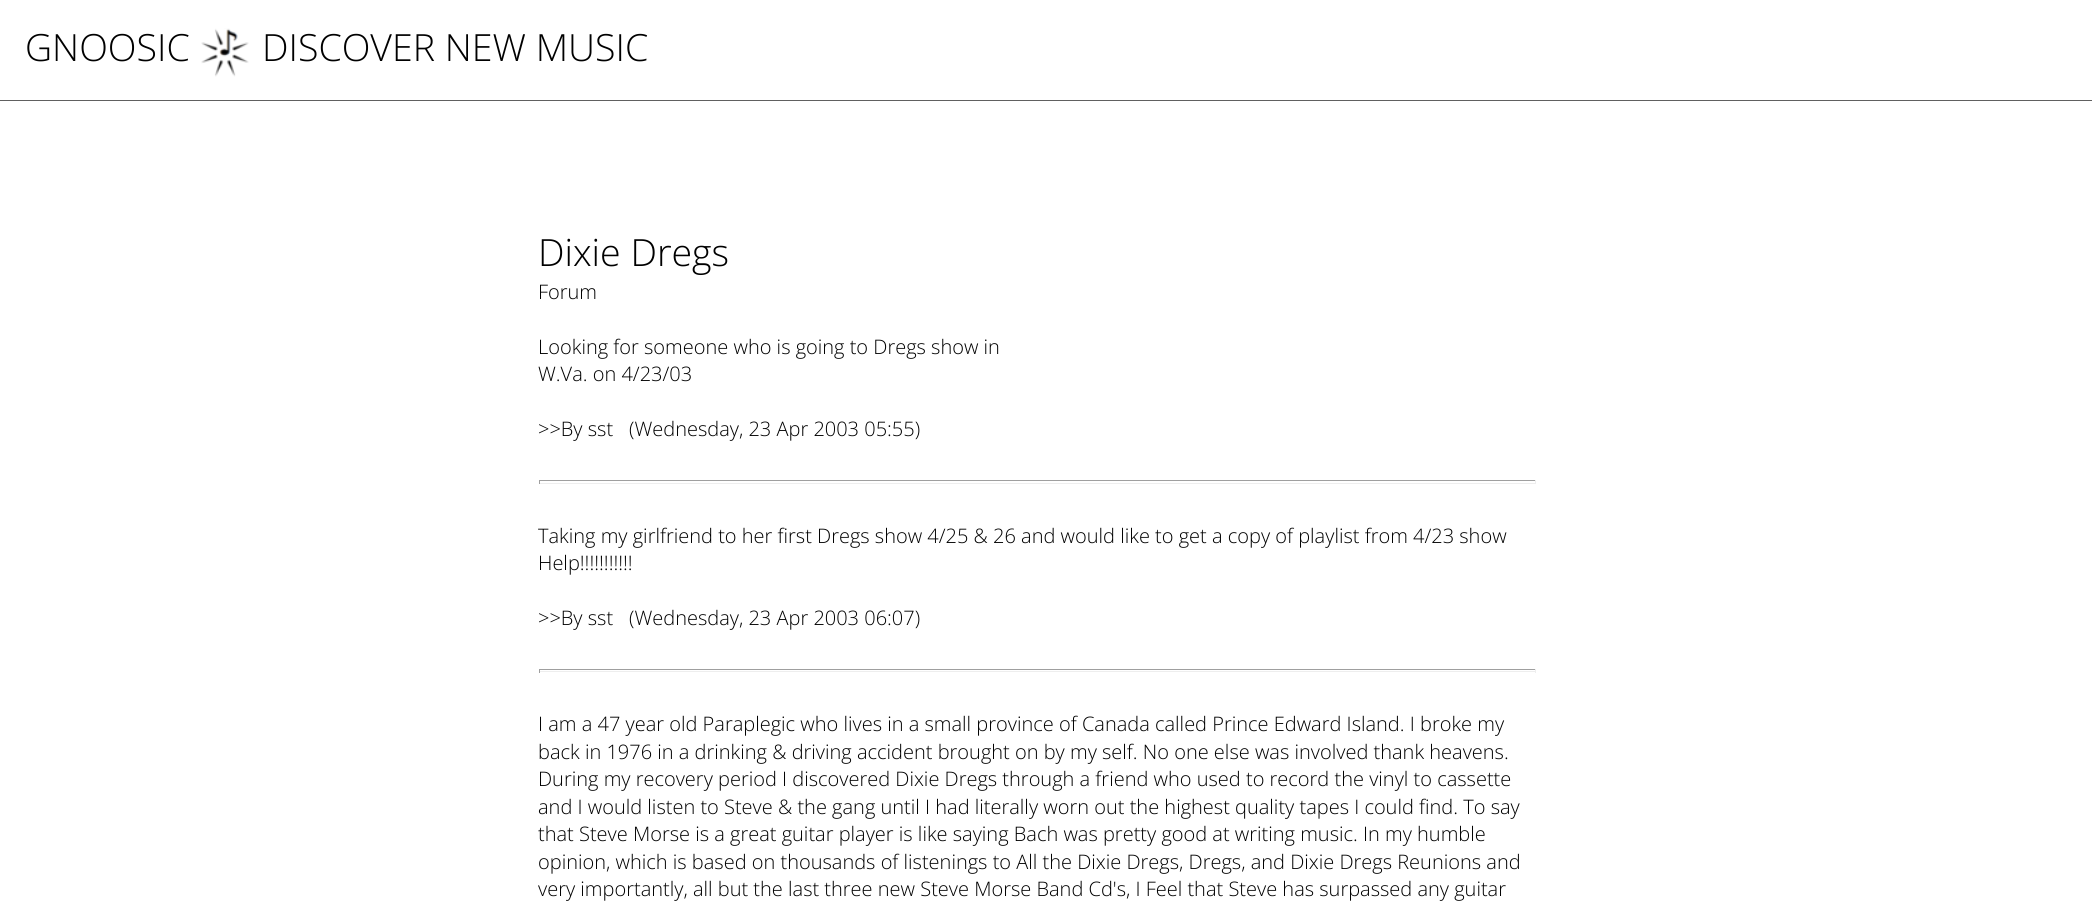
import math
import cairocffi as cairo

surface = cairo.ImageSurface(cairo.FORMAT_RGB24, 2092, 905)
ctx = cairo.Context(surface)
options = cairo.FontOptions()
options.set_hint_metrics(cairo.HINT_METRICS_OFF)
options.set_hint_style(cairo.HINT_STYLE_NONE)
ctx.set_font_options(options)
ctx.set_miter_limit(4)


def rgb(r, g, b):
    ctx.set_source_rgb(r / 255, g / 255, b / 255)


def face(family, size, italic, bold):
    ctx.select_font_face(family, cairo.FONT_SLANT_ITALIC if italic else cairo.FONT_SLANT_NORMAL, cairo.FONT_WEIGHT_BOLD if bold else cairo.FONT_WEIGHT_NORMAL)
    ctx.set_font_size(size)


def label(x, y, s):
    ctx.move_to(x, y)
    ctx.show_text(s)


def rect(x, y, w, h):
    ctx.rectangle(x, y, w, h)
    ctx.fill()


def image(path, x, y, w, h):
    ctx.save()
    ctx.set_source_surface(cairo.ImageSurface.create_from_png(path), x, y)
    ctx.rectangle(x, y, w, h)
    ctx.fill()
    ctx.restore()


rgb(255, 255, 255)
ctx.paint()
face('Open Sans Light', 37.5, 0, 0)
rgb(0, 0, 0)
label(25, 61, 'GNOOSIC')
image('image0.png', 201, 28, 48, 49)
label(262, 61, 'DISCOVER NEW MUSIC')
rgb(96, 96, 96)
rect(0, 100, 2092, 1)
rgb(0, 0, 0)
label(538, 266, 'Dixie Dregs')
face('Open Sans Light', 20, 0, 0)
label(538, 299, 'Forum')
label(538, 354, 'Looking for someone who is going to Dregs show in')
label(538, 381, 'W.Va. on 4/23/03')
label(538, 436, '>>By sst')
label(629, 436, '(Wednesday, 23 Apr 2003 05:55)')
rgb(159, 159, 159)
rect(539, 480, 997, 1)
rgb(238, 238, 238)
rect(1535, 480, 1, 4)
rect(539, 483, 997, 1)
rgb(159, 159, 159)
rect(539, 480, 1, 4)
rgb(0, 0, 0)
label(538, 543, 'Taking my girlfriend to her first Dregs show 4/25 & 26 and would like to get a copy of playlist from 4/23 show')
label(538, 570, 'Help!!!!!!!!!!!')
label(538, 625, '>>By sst')
label(629, 625, '(Wednesday, 23 Apr 2003 06:07)')
rgb(159, 159, 159)
rect(539, 669, 997, 1)
rgb(238, 238, 238)
rect(1535, 669, 1, 4)
rect(539, 671, 997, 1)
rgb(159, 159, 159)
rect(539, 669, 1, 4)
rgb(0, 0, 0)
label(538, 731, 'I am a 47 year old Paraplegic who lives in a small province of Canada called Prince Edward Island. I broke my')
label(538, 759, 'back in 1976 in a drinking & driving accident brought on by my self. No one else was involved thank heavens.')
label(538, 786, 'During my recovery period I discovered Dixie Dregs through a friend who used to record the vinyl to cassette')
label(538, 814, 'and I would listen to Steve & the gang until I had literally worn out the highest quality tapes I could find. To say')
label(538, 841, 'that Steve Morse is a great guitar player is like saying Bach was pretty good at writing music. In my humble')
label(538, 869, 'opinion, which is based on thousands of listenings to All the Dixie Dregs, Dregs, and Dixie Dregs Reunions and')
label(538, 896, 'very importantly, all but the last three new Steve Morse Band Cd\'s, I Feel that Steve has surpassed any guitar')
surface.write_to_png('render.png')
